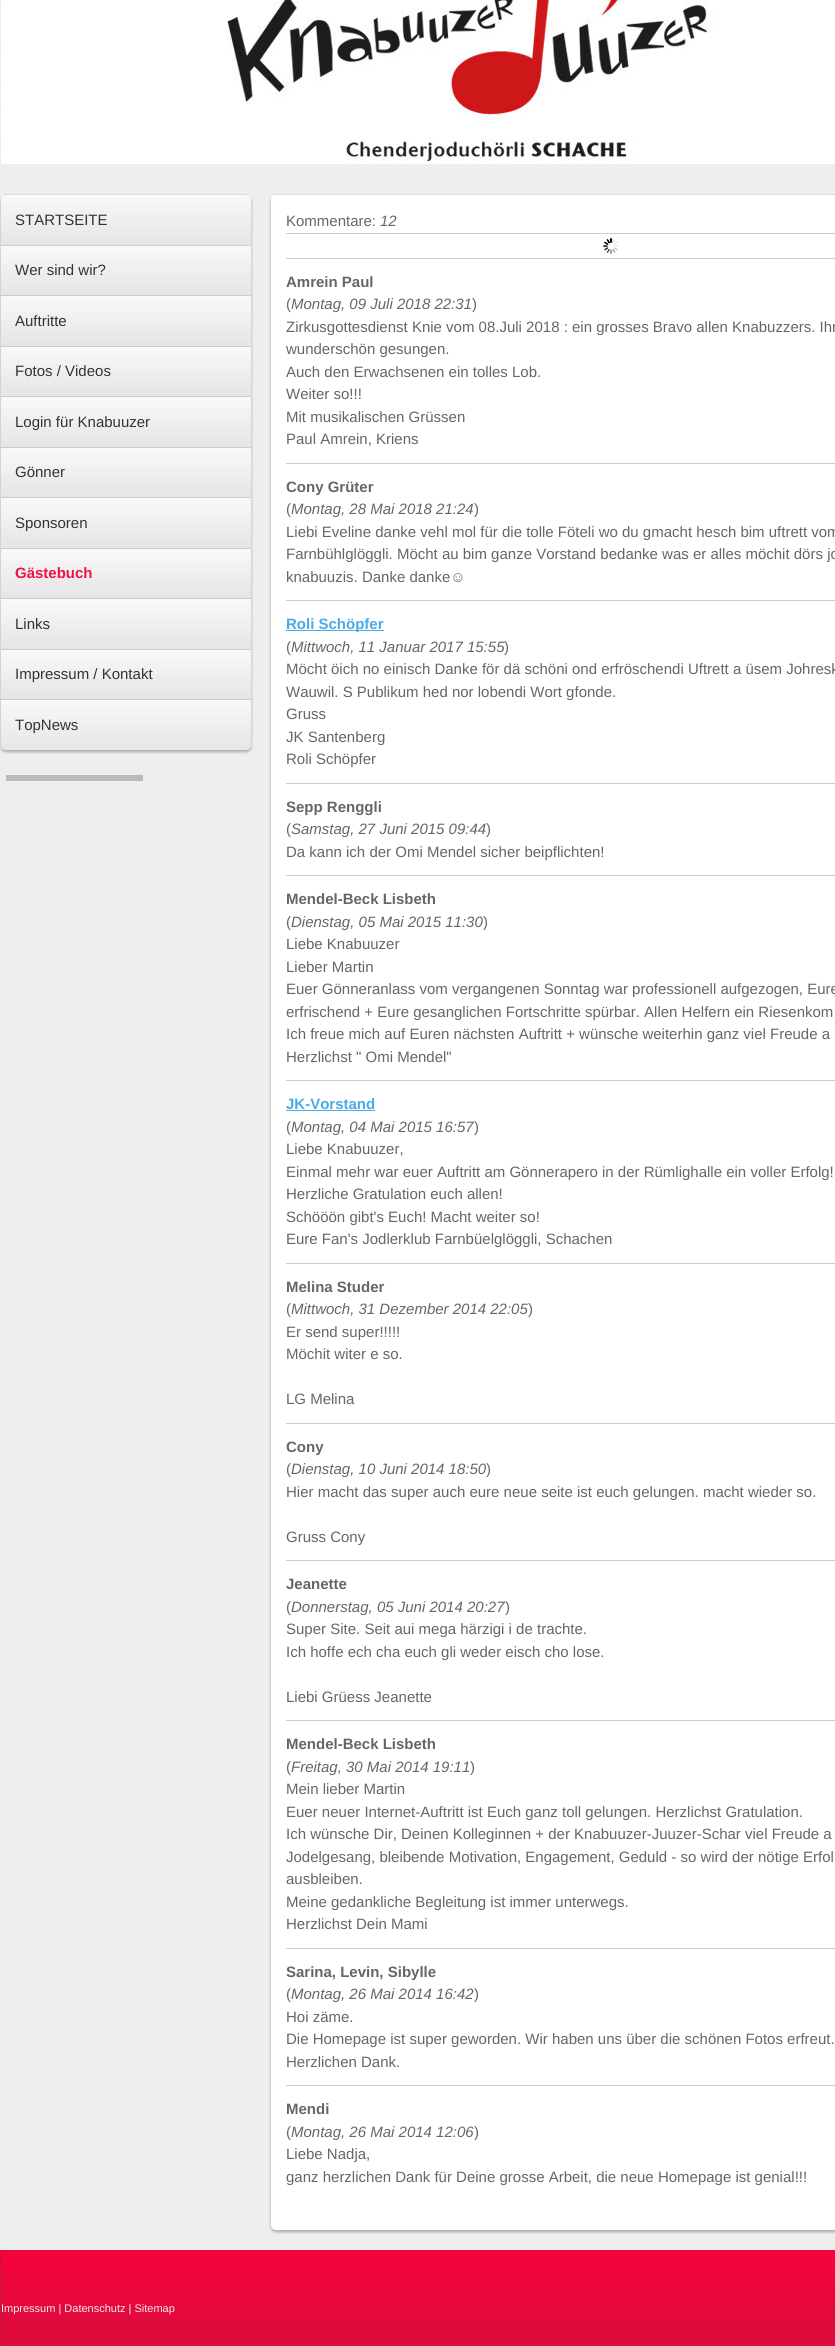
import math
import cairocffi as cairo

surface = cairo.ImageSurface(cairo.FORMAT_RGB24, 835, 2346)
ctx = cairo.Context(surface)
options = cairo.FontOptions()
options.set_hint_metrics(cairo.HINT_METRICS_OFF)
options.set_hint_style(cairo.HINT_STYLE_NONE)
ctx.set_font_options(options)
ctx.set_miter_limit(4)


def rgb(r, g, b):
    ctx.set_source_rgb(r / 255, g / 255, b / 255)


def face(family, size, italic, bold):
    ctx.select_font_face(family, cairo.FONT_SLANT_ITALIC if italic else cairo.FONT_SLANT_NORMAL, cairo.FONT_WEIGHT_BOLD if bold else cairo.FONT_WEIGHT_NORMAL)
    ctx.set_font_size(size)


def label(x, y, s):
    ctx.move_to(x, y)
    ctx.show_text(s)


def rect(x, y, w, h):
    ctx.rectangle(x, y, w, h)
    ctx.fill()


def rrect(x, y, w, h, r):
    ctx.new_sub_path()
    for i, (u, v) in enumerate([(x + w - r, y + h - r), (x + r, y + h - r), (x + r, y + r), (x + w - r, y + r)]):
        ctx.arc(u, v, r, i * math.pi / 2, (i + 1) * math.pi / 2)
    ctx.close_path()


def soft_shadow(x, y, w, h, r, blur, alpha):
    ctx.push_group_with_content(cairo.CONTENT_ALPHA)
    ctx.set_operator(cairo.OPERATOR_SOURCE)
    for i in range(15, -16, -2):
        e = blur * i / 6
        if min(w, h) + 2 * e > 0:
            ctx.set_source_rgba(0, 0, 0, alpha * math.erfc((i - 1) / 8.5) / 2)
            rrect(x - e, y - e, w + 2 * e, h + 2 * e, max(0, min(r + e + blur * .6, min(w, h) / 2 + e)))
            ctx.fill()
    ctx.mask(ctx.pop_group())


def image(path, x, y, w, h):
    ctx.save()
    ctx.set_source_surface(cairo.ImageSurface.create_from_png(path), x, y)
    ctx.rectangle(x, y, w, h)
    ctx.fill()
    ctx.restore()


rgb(255, 255, 255)
ctx.paint()
image('image0.png', 0, 0, 1, 164)
image('image1.png', 225, 0, 488, 161)
rgb(238, 238, 238)
rect(0, 164, 835, 2086)
rgb(0, 0, 0)
soft_shadow(1, 196, 250, 556, 5, 1.5, 0.3)
rgb(221, 221, 221)
rect(4, 194, 245, 1)
gradient = cairo.LinearGradient(126, 195, 126, 245)
gradient.add_color_stop_rgba(0, 0.976, 0.976, 0.976, 1)
gradient.add_color_stop_rgba(1, 0.898, 0.898, 0.898, 1)
ctx.set_source(gradient)
ctx.new_path()
ctx.move_to(6, 195)
ctx.curve_to(3, 195, 1, 197, 1, 199)
ctx.line_to(1, 245)
ctx.line_to(251, 245)
ctx.line_to(251, 199)
ctx.curve_to(251, 197, 249, 195, 246, 195)
ctx.close_path()
ctx.fill()
rgb(204, 204, 204)
rect(1, 245, 250, 1)
face('Liberation Sans', 15, 0, 0)
rgb(51, 51, 51)
label(15, 225, 'STARTSEITE')
gradient = cairo.LinearGradient(126, 246, 126, 295)
gradient.add_color_stop_rgba(0, 0.976, 0.976, 0.976, 1)
gradient.add_color_stop_rgba(1, 0.898, 0.898, 0.898, 1)
ctx.set_source(gradient)
rect(1, 246, 250, 49)
rgb(204, 204, 204)
rect(1, 295, 250, 1)
rgb(51, 51, 51)
label(15, 275, 'Wer sind wir?')
gradient = cairo.LinearGradient(126, 296, 126, 346)
gradient.add_color_stop_rgba(0, 0.976, 0.976, 0.976, 1)
gradient.add_color_stop_rgba(1, 0.898, 0.898, 0.898, 1)
ctx.set_source(gradient)
rect(1, 296, 250, 50)
rgb(204, 204, 204)
rect(1, 346, 250, 1)
rgb(51, 51, 51)
label(15, 326, 'Auftritte')
gradient = cairo.LinearGradient(126, 347, 126, 396)
gradient.add_color_stop_rgba(0, 0.976, 0.976, 0.976, 1)
gradient.add_color_stop_rgba(1, 0.898, 0.898, 0.898, 1)
ctx.set_source(gradient)
rect(1, 347, 250, 49)
rgb(204, 204, 204)
rect(1, 396, 250, 1)
rgb(51, 51, 51)
label(15, 376, 'Fotos / Videos')
gradient = cairo.LinearGradient(126, 397, 126, 447)
gradient.add_color_stop_rgba(0, 0.976, 0.976, 0.976, 1)
gradient.add_color_stop_rgba(1, 0.898, 0.898, 0.898, 1)
ctx.set_source(gradient)
rect(1, 397, 250, 50)
rgb(204, 204, 204)
rect(1, 447, 250, 1)
rgb(51, 51, 51)
label(15, 427, 'Login für Knabuuzer')
gradient = cairo.LinearGradient(126, 448, 126, 497)
gradient.add_color_stop_rgba(0, 0.976, 0.976, 0.976, 1)
gradient.add_color_stop_rgba(1, 0.898, 0.898, 0.898, 1)
ctx.set_source(gradient)
rect(1, 448, 250, 49)
rgb(204, 204, 204)
rect(1, 497, 250, 1)
rgb(51, 51, 51)
label(15, 477, 'Gönner')
gradient = cairo.LinearGradient(126, 498, 126, 548)
gradient.add_color_stop_rgba(0, 0.976, 0.976, 0.976, 1)
gradient.add_color_stop_rgba(1, 0.898, 0.898, 0.898, 1)
ctx.set_source(gradient)
rect(1, 498, 250, 50)
rgb(204, 204, 204)
rect(1, 548, 250, 1)
rgb(51, 51, 51)
label(15, 528, 'Sponsoren')
gradient = cairo.LinearGradient(126, 549, 126, 598)
gradient.add_color_stop_rgba(0, 0.976, 0.976, 0.976, 1)
gradient.add_color_stop_rgba(1, 0.898, 0.898, 0.898, 1)
ctx.set_source(gradient)
rect(1, 549, 250, 49)
rgb(204, 204, 204)
rect(1, 598, 250, 1)
face('Liberation Sans', 15, 0, 1)
rgb(243, 16, 68)
label(15, 578, 'Gästebuch')
gradient = cairo.LinearGradient(126, 599, 126, 649)
gradient.add_color_stop_rgba(0, 0.976, 0.976, 0.976, 1)
gradient.add_color_stop_rgba(1, 0.898, 0.898, 0.898, 1)
ctx.set_source(gradient)
rect(1, 599, 250, 50)
rgb(204, 204, 204)
rect(1, 649, 250, 1)
face('Liberation Sans', 15, 0, 0)
rgb(51, 51, 51)
label(15, 629, 'Links')
gradient = cairo.LinearGradient(126, 650, 126, 699)
gradient.add_color_stop_rgba(0, 0.976, 0.976, 0.976, 1)
gradient.add_color_stop_rgba(1, 0.898, 0.898, 0.898, 1)
ctx.set_source(gradient)
rect(1, 650, 250, 49)
rgb(204, 204, 204)
rect(1, 699, 250, 1)
rgb(51, 51, 51)
label(15, 679, 'Impressum / Kontakt')
gradient = cairo.LinearGradient(126, 700, 126, 750)
gradient.add_color_stop_rgba(0, 0.976, 0.976, 0.976, 1)
gradient.add_color_stop_rgba(1, 0.898, 0.898, 0.898, 1)
ctx.set_source(gradient)
ctx.new_path()
ctx.move_to(1, 700)
ctx.line_to(1, 745)
ctx.curve_to(1, 748, 3, 750, 6, 750)
ctx.line_to(246, 750)
ctx.curve_to(249, 750, 251, 748, 251, 745)
ctx.line_to(251, 700)
ctx.close_path()
ctx.fill()
rgb(51, 51, 51)
label(15, 730, 'TopNews')
rgb(186, 186, 186)
rect(6, 775, 137, 6)
rgb(0, 0, 0)
soft_shadow(271, 196, 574, 2036, 5, 1.5, 0.3)
rgb(255, 255, 255)
rrect(271, 194, 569, 2036, 5)
ctx.fill()
rgb(221, 221, 221)
rect(274, 194, 561, 1)
rgb(102, 102, 102)
label(286, 226, 'Kommentare:')
face('Liberation Sans', 15, 1, 0)
label(380, 226, '12')
image('image2.png', 603, 238, 16, 16)
rgb(204, 204, 204)
rect(286, 233, 549, 1)
rect(286, 258, 549, 1)
face('Liberation Sans', 15, 0, 1)
rgb(102, 102, 102)
label(286, 287, 'Amrein Paul')
face('Liberation Sans', 15, 0, 0)
label(286, 309, '(')
face('Liberation Sans', 15, 1, 0)
label(291, 309, 'Montag, 09 Juli 2018 22:31')
face('Liberation Sans', 15, 0, 0)
label(472, 309, ')')
label(286, 332, 'Zirkusgottesdienst Knie vom 08.Juli 2018 : ein grosses Bravo allen Knabuzzers. Ihr')
label(286, 354, 'wunderschön gesungen.')
label(286, 377, 'Auch den Erwachsenen ein tolles Lob.')
label(286, 399, 'Weiter so!!!')
label(286, 422, 'Mit musikalischen Grüssen')
label(286, 444, 'Paul Amrein, Kriens')
rgb(204, 204, 204)
rect(286, 463, 549, 1)
face('Liberation Sans', 15, 0, 1)
rgb(102, 102, 102)
label(286, 492, 'Cony Grüter')
face('Liberation Sans', 15, 0, 0)
label(286, 514, '(')
face('Liberation Sans', 15, 1, 0)
label(291, 514, 'Montag, 28 Mai 2018 21:24')
face('Liberation Sans', 15, 0, 0)
label(474, 514, ')')
label(286, 537, 'Liebi Eveline danke vehl mol für die tolle Föteli wo du gmacht hesch bim uftrett vom')
label(286, 559, 'Farnbühlglöggli. Möcht au bim ganze Vorstand bedanke was er alles möchit dörs jo')
label(286, 582, 'knabuuzis. Danke danke☺')
rgb(204, 204, 204)
rect(286, 600, 549, 1)
rgb(73, 169, 233)
rect(286, 630, 98, 1)
face('Liberation Sans', 15, 0, 1)
label(286, 629, 'Roli Schöpfer')
face('Liberation Sans', 15, 0, 0)
rgb(102, 102, 102)
label(286, 652, '(')
face('Liberation Sans', 15, 1, 0)
label(291, 652, 'Mittwoch, 11 Januar 2017 15:55')
face('Liberation Sans', 15, 0, 0)
label(504, 652, ')')
label(286, 674, 'Möcht öich no einisch Danke för dä schöni ond erfröschendi Uftrett a üsem Johresk')
label(286, 697, 'Wauwil. S Publikum hed nor lobendi Wort gfonde.')
label(286, 719, 'Gruss')
label(286, 742, 'JK Santenberg')
label(286, 764, 'Roli Schöpfer')
rgb(204, 204, 204)
rect(286, 783, 549, 1)
face('Liberation Sans', 15, 0, 1)
rgb(102, 102, 102)
label(286, 812, 'Sepp Renggli')
face('Liberation Sans', 15, 0, 0)
label(286, 834, '(')
face('Liberation Sans', 15, 1, 0)
label(291, 834, 'Samstag, 27 Juni 2015 09:44')
face('Liberation Sans', 15, 0, 0)
label(486, 834, ')')
label(286, 857, 'Da kann ich der Omi Mendel sicher beipflichten!')
rgb(204, 204, 204)
rect(286, 875, 549, 1)
face('Liberation Sans', 15, 0, 1)
rgb(102, 102, 102)
label(286, 904, 'Mendel-Beck Lisbeth')
face('Liberation Sans', 15, 0, 0)
label(286, 927, '(')
face('Liberation Sans', 15, 1, 0)
label(291, 927, 'Dienstag, 05 Mai 2015 11:30')
face('Liberation Sans', 15, 0, 0)
label(483, 927, ')')
label(286, 949, 'Liebe Knabuuzer')
label(286, 972, 'Lieber Martin')
label(286, 994, 'Euer Gönneranlass vom vergangenen Sonntag war professionell aufgezogen, Eure')
label(286, 1017, 'erfrischend + Eure gesanglichen Fortschritte spürbar. Allen Helfern ein Riesenkom')
label(286, 1039, 'Ich freue mich auf Euren nächsten Auftritt + wünsche weiterhin ganz viel Freude a')
label(286, 1062, 'Herzlichst " Omi Mendel"')
rgb(204, 204, 204)
rect(286, 1080, 549, 1)
face('Liberation Sans', 15, 0, 1)
rgb(73, 169, 233)
label(286, 1109, 'JK-Vorstand')
rect(286, 1110, 89, 1)
face('Liberation Sans', 15, 0, 0)
rgb(102, 102, 102)
label(286, 1132, '(')
face('Liberation Sans', 15, 1, 0)
label(291, 1132, 'Montag, 04 Mai 2015 16:57')
face('Liberation Sans', 15, 0, 0)
label(474, 1132, ')')
label(286, 1154, 'Liebe Knabuuzer,')
label(286, 1177, 'Einmal mehr war euer Auftritt am Gönnerapero in der Rümlighalle ein voller Erfolg!')
label(286, 1199, 'Herzliche Gratulation euch allen!')
label(286, 1222, 'Schööön gibt\'s Euch! Macht weiter so!')
label(286, 1244, 'Eure Fan\'s Jodlerklub Farnbüelglöggli, Schachen')
rgb(204, 204, 204)
rect(286, 1263, 549, 1)
face('Liberation Sans', 15, 0, 1)
rgb(102, 102, 102)
label(286, 1292, 'Melina Studer')
face('Liberation Sans', 15, 0, 0)
label(286, 1314, '(')
face('Liberation Sans', 15, 1, 0)
label(291, 1314, 'Mittwoch, 31 Dezember 2014 22:05')
face('Liberation Sans', 15, 0, 0)
label(528, 1314, ')')
label(286, 1337, 'Er send super!!!!!')
label(286, 1359, 'Möchit witer e so.')
label(286, 1404, 'LG Melina')
rgb(204, 204, 204)
rect(286, 1423, 549, 1)
face('Liberation Sans', 15, 0, 1)
rgb(102, 102, 102)
label(286, 1452, 'Cony')
face('Liberation Sans', 15, 0, 0)
label(286, 1474, '(')
face('Liberation Sans', 15, 1, 0)
label(291, 1474, 'Dienstag, 10 Juni 2014 18:50')
face('Liberation Sans', 15, 0, 0)
label(486, 1474, ')')
label(286, 1497, 'Hier macht das super auch eure neue seite ist euch gelungen. macht wieder so.')
label(286, 1542, 'Gruss Cony')
rgb(204, 204, 204)
rect(286, 1560, 549, 1)
face('Liberation Sans', 15, 0, 1)
rgb(102, 102, 102)
label(286, 1589, 'Jeanette')
face('Liberation Sans', 15, 0, 0)
label(286, 1612, '(')
face('Liberation Sans', 15, 1, 0)
label(291, 1612, 'Donnerstag, 05 Juni 2014 20:27')
face('Liberation Sans', 15, 0, 0)
label(505, 1612, ')')
label(286, 1634, 'Super Site. Seit aui mega härzigi i de trachte.')
label(286, 1657, 'Ich hoffe ech cha euch gli weder eisch cho lose.')
label(286, 1702, 'Liebi Grüess Jeanette')
rgb(204, 204, 204)
rect(286, 1720, 549, 1)
face('Liberation Sans', 15, 0, 1)
rgb(102, 102, 102)
label(286, 1749, 'Mendel-Beck Lisbeth')
face('Liberation Sans', 15, 0, 0)
label(286, 1772, '(')
face('Liberation Sans', 15, 1, 0)
label(291, 1772, 'Freitag, 30 Mai 2014 19:11')
face('Liberation Sans', 15, 0, 0)
label(470, 1772, ')')
label(286, 1794, 'Mein lieber Martin')
label(286, 1817, 'Euer neuer Internet-Auftritt ist Euch ganz toll gelungen. Herzlichst Gratulation.')
label(286, 1839, 'Ich wünsche Dir, Deinen Kolleginnen + der Knabuuzer-Juuzer-Schar viel Freude a')
label(286, 1862, 'Jodelgesang, bleibende Motivation, Engagement, Geduld - so wird der nötige Erfol')
label(286, 1884, 'ausbleiben.')
label(286, 1907, 'Meine gedankliche Begleitung ist immer unterwegs.')
label(286, 1929, 'Herzlichst Dein Mami')
rgb(204, 204, 204)
rect(286, 1948, 549, 1)
face('Liberation Sans', 15, 0, 1)
rgb(102, 102, 102)
label(286, 1977, 'Sarina, Levin, Sibylle')
face('Liberation Sans', 15, 0, 0)
label(286, 1999, '(')
face('Liberation Sans', 15, 1, 0)
label(291, 1999, 'Montag, 26 Mai 2014 16:42')
face('Liberation Sans', 15, 0, 0)
label(474, 1999, ')')
label(286, 2022, 'Hoi zäme.')
label(286, 2044, 'Die Homepage ist super geworden. Wir haben uns über die schönen Fotos erfreut.')
label(286, 2067, 'Herzlichen Dank.')
rgb(204, 204, 204)
rect(286, 2085, 549, 1)
face('Liberation Sans', 15, 0, 1)
rgb(102, 102, 102)
label(286, 2114, 'Mendi')
face('Liberation Sans', 15, 0, 0)
label(286, 2137, '(')
face('Liberation Sans', 15, 1, 0)
label(291, 2137, 'Montag, 26 Mai 2014 12:06')
face('Liberation Sans', 15, 0, 0)
label(474, 2137, ')')
label(286, 2159, 'Liebe Nadja,')
label(286, 2182, 'ganz herzlichen Dank für Deine grosse Arbeit, die neue Homepage ist genial!!!')
gradient = cairo.LinearGradient(476, 2251, 476, 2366)
gradient.add_color_stop_rgba(0, 0.965, 0.008, 0.247, 1)
gradient.add_color_stop_rgba(1, 0.831, 0.055, 0.224, 1)
ctx.set_source(gradient)
rect(1, 2251, 834, 95)
ctx.rectangle(0.5, 2250.5, 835, 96)
rgb(197, 21, 55)
ctx.set_line_width(1)
ctx.stroke()
face('Liberation Sans', 11, 0, 0)
rgb(238, 238, 238)
label(1, 2312, 'Impressum | Datenschutz | Sitemap')
surface.write_to_png('render.png')
